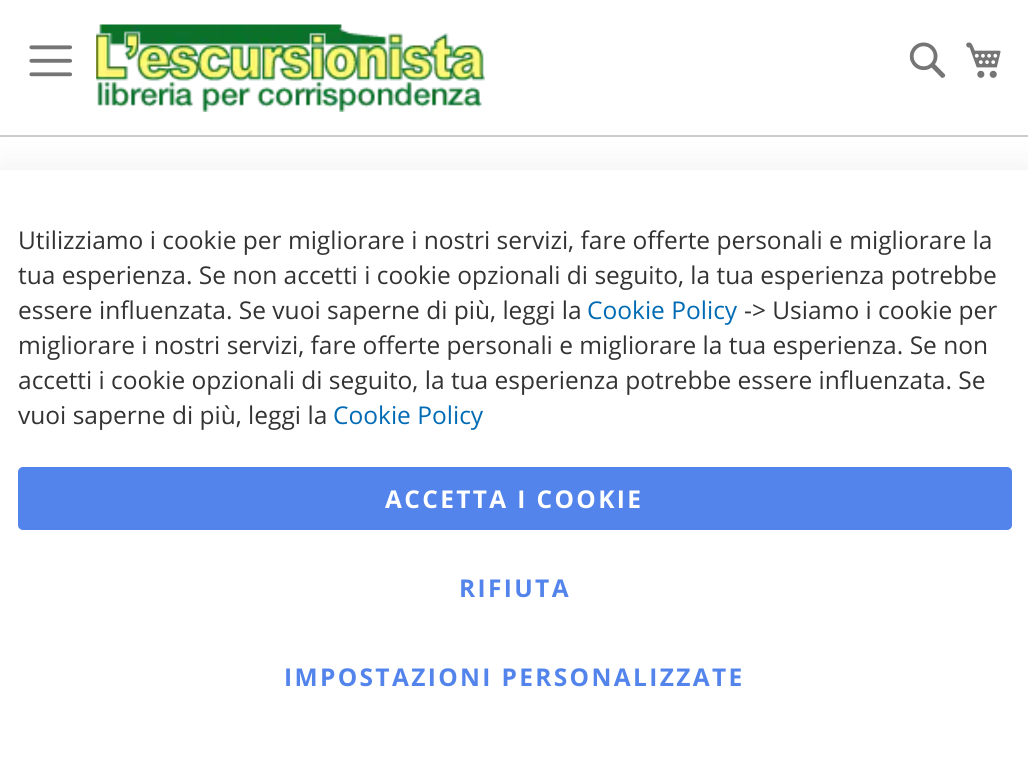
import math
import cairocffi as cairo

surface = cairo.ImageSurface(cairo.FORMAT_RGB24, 1028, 761)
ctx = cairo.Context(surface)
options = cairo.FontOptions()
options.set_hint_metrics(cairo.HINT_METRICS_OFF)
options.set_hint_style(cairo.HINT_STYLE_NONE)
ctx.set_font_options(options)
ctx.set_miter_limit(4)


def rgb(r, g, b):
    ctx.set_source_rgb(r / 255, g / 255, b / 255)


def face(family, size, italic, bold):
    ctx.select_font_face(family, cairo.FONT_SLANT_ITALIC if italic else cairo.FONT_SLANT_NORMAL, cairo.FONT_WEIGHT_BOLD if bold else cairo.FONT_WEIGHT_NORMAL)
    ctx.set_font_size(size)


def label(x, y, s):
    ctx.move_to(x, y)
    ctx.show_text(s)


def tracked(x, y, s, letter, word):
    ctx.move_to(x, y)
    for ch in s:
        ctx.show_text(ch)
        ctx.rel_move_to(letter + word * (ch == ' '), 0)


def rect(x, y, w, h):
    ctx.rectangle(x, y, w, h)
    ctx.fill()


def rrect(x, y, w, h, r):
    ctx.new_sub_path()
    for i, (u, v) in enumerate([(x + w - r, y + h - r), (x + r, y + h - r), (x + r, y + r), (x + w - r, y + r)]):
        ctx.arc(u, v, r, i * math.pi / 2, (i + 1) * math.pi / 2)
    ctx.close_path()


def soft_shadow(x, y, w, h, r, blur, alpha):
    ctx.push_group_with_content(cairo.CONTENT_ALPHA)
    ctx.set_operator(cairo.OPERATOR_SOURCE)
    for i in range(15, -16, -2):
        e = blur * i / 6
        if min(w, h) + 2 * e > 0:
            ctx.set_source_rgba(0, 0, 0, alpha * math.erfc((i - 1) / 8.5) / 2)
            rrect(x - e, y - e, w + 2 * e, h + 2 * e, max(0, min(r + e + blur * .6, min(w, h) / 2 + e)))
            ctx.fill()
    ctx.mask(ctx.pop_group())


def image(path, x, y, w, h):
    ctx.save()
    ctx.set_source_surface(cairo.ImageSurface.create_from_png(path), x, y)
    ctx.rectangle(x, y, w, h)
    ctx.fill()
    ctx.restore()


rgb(255, 255, 255)
ctx.paint()
rgb(204, 204, 204)
rect(0, 135, 1028, 2)
image('image0.png', 29, 45, 44, 32)
image('image1.png', 96, 24, 389, 88)
image('image2.png', 909, 42, 37, 36)
image('image3.png', 966, 42, 35, 36)
rgb(0, 0, 0)
soft_shadow(0, 166, 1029, 592, 0, 16, 0.06)
rgb(255, 255, 255)
rect(0, 170, 1028, 591)
face('Open Sans', 24.5, 0, 0)
rgb(51, 51, 51)
label(18, 249, 'Utilizziamo i cookie per migliorare i nostri servizi, fare offerte personali e migliorare la')
label(18, 284, 'tua esperienza. Se non accetti i cookie opzionali di seguito, la tua esperienza potrebbe')
label(18, 319, 'essere influenzata. Se vuoi saperne di più, leggi la')
rgb(0, 107, 180)
label(587, 319, 'Cookie Policy')
rgb(51, 51, 51)
label(744, 319, '-> Usiamo i cookie per')
label(18, 354, 'migliorare i nostri servizi, fare offerte personali e migliorare la tua esperienza. Se non')
label(18, 389, 'accetti i cookie opzionali di seguito, la tua esperienza potrebbe essere influenzata. Se')
label(18, 424, 'vuoi saperne di più, leggi la')
rgb(0, 107, 180)
label(333, 424, 'Cookie Policy')
rgb(83, 132, 236)
rrect(18, 467, 994, 63, 5)
ctx.fill()
face('Open Sans', 24.5, 0, 1)
rgb(255, 255, 255)
tracked(385, 508, 'ACCETTA I COOKIE', 2.35, 0)
rgb(83, 132, 236)
tracked(459, 597, 'RIFIUTA', 2.35, 0)
tracked(284, 686, 'IMPOSTAZIONI PERSONALIZZATE', 2.35, 0)
surface.write_to_png('render.png')
